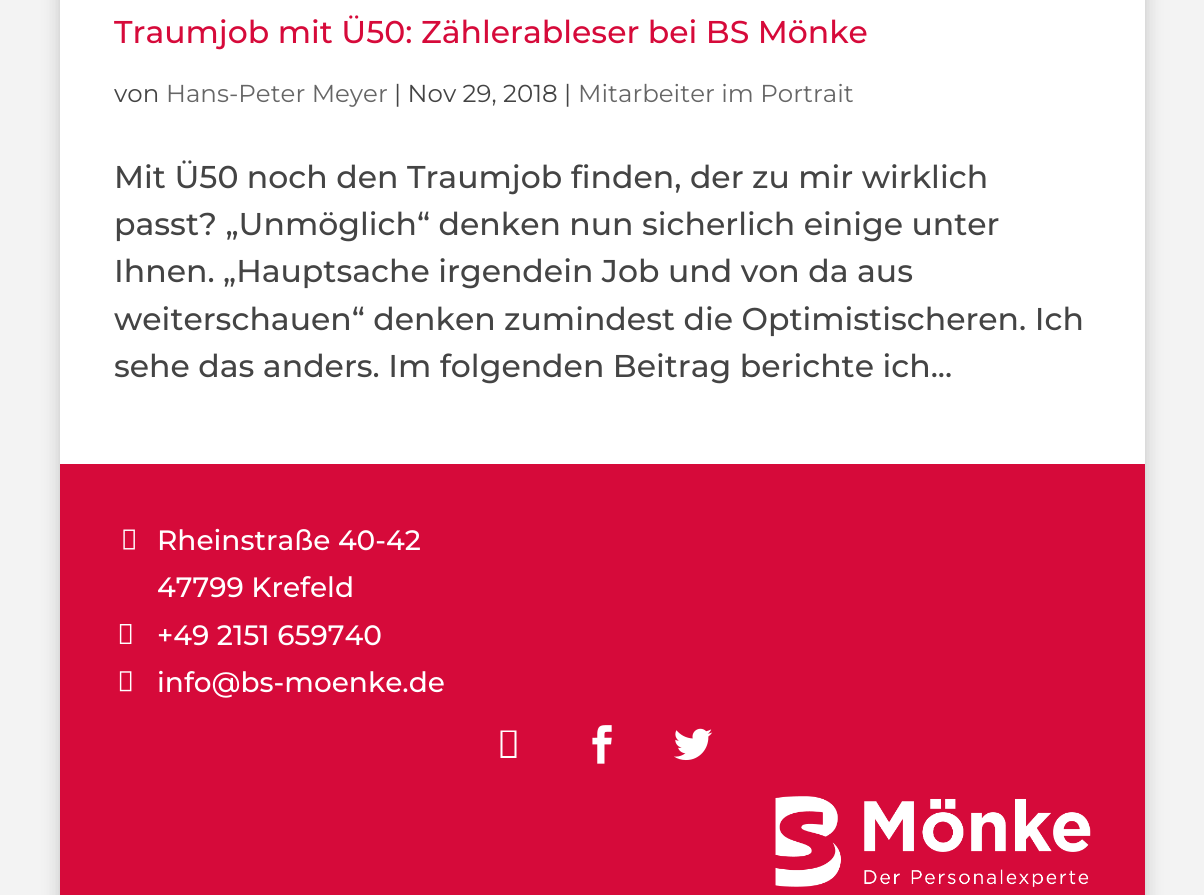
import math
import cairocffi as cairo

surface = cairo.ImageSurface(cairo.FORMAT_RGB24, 1204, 895)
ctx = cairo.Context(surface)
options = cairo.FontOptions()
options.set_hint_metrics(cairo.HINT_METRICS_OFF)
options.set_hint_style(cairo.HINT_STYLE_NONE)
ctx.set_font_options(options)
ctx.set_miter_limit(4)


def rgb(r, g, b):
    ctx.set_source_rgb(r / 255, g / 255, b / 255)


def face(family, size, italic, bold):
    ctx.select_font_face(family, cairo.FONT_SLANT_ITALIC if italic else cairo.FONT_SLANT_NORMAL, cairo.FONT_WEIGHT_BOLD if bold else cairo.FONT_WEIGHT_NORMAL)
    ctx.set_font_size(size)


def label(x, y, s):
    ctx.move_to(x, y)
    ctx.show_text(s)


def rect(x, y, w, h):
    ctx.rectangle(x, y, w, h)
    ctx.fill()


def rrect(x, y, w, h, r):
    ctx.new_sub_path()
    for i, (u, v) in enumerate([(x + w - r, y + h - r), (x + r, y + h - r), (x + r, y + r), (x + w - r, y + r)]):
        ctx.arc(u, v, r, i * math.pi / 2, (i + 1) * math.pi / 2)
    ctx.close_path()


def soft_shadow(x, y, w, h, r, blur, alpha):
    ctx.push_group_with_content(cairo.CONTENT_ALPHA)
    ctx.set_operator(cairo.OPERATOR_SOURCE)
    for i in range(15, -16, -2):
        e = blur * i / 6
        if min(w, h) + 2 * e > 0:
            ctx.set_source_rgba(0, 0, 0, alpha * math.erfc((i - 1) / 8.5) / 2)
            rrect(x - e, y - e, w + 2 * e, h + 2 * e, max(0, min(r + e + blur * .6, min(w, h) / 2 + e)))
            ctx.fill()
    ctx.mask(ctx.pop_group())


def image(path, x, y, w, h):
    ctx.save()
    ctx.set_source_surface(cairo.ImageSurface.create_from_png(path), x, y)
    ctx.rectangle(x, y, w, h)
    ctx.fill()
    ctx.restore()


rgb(243, 243, 243)
ctx.paint()
rgb(0, 0, 0)
soft_shadow(60, -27, 1085, 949, 0, 9, 0.2)
rgb(255, 255, 255)
rect(60, 0, 1085, 464)
face('Montserrat Thin', 31.5, 0, 0)
rgb(214, 10, 58)
label(114, 43, 'Traumjob mit Ü50: Zählerableser bei BS Mönke')
face('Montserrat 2 Thin', 24.5, 0, 0)
rgb(68, 68, 68)
label(114, 102, 'von')
rgb(102, 102, 102)
label(166, 102, 'Hans-Peter Meyer')
rgb(68, 68, 68)
label(394, 102, '| Nov 29, 2018 |')
rgb(102, 102, 102)
label(578, 102, 'Mitarbeiter im Portrait')
face('Montserrat Thin', 31.5, 0, 0)
rgb(68, 68, 68)
label(114, 188, 'Mit Ü50 noch den Traumjob finden, der zu mir wirklich')
label(114, 235, 'passt? „Unmöglich“ denken nun sicherlich einige unter')
label(114, 282, 'Ihnen. „Hauptsache irgendein Job und von da aus')
label(114, 330, 'weiterschauen“ denken zumindest die Optimistischeren. Ich')
label(114, 377, 'sehe das anders. Im folgenden Beitrag berichte ich...')
rgb(214, 10, 58)
rect(60, 464, 1085, 431)
image('image0.png', 123, 529, 12, 21)
face('Montserrat Thin', 28, 0, 0)
rgb(255, 255, 255)
label(157, 550, 'Rheinstraße 40-42')
label(157, 597, '47799 Krefeld')
image('image1.png', 119, 624, 13, 20)
label(157, 645, '+49 2151 659740')
image('image2.png', 119, 671, 13, 21)
label(157, 692, 'info@bs-moenke.de')
ctx.new_path()
ctx.move_to(500.5, 758)
ctx.line_to(500.5, 730.5)
ctx.line_to(516.5, 730.5)
ctx.line_to(516.5, 758)
ctx.close_path()
ctx.move_to(502.5, 756)
ctx.line_to(514.5, 756)
ctx.line_to(514.5, 732)
ctx.line_to(502.5, 732)
ctx.close_path()
ctx.fill()
image('image3.png', 592, 725, 20, 39)
image('image4.png', 674, 728, 39, 33)
image('image5.png', 775, 796, 316, 91)
surface.write_to_png('render.png')
